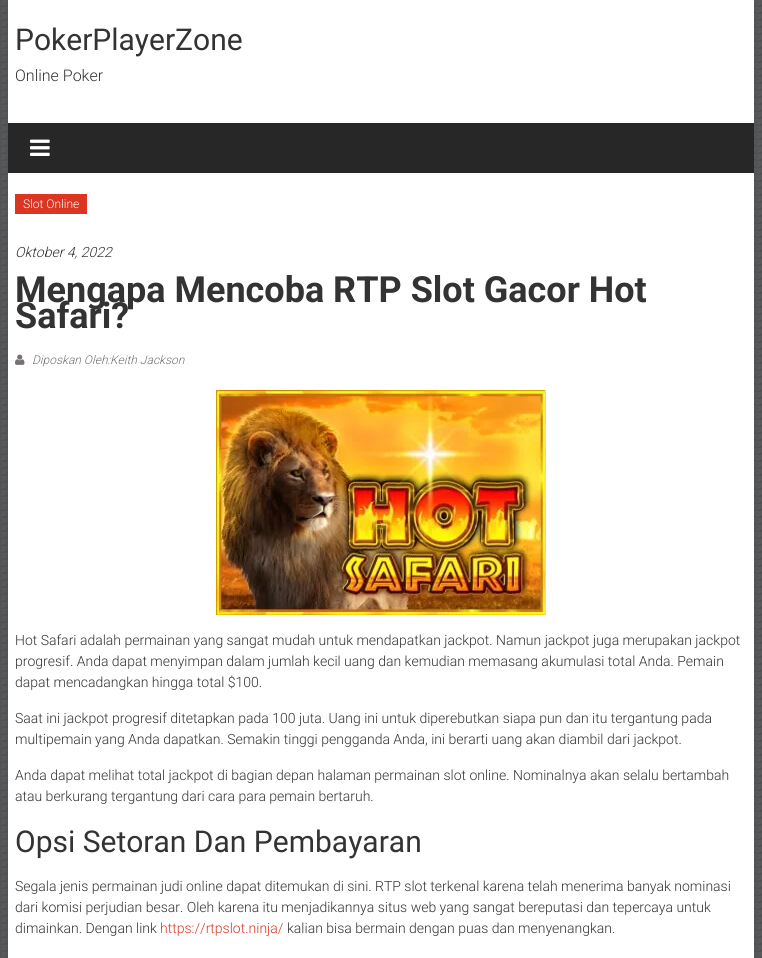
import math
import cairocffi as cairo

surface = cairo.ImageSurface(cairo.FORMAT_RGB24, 762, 958)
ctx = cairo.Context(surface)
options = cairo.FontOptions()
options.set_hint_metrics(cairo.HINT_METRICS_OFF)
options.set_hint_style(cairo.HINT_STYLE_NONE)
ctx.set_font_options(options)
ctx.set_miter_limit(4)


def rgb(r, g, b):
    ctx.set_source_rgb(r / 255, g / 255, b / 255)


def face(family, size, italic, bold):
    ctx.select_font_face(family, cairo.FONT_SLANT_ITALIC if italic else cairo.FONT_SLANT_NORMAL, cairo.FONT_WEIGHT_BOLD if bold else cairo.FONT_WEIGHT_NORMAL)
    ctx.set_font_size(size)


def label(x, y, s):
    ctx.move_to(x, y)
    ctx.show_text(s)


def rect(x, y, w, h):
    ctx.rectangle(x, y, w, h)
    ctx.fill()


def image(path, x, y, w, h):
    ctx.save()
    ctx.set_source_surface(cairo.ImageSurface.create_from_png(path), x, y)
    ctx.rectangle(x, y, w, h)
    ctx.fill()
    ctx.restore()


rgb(255, 255, 255)
ctx.paint()
image('image0.png', 0, 0, 762, 958)
rgb(255, 255, 255)
rect(8, 0, 746, 958)
face('Roboto', 30, 0, 0)
rgb(51, 51, 51)
label(15, 50, 'PokerPlayerZone')
face('Roboto Light', 16, 0, 0)
label(15, 81, 'Online Poker')
rgb(39, 39, 39)
rect(8, 123, 746, 50)
image('image1.png', 30, 139, 20, 17)
rgb(220, 53, 34)
rect(15, 194, 72, 20)
face('Roboto Light', 12, 0, 0)
rgb(255, 255, 255)
label(23, 208, 'Slot Online')
face('Roboto Light', 14, 1, 0)
rgb(51, 51, 51)
label(15, 257, 'Oktober 4, 2022')
face('Roboto', 36, 0, 1)
label(15, 302, 'Mengapa Mencoba RTP Slot Gacor Hot')
label(15, 328, 'Safari?')
image('image2.png', 15, 354, 10, 11)
face('Roboto Light', 12, 1, 0)
rgb(118, 114, 114)
label(32, 364, 'Diposkan Oleh:Keith Jackson')
image('image3.png', 216, 390, 330, 225)
face('Roboto Light', 14, 0, 0)
rgb(51, 51, 51)
label(15, 645, 'Hot Safari adalah permainan yang sangat mudah untuk mendapatkan jackpot. Namun jackpot juga merupakan jackpot')
label(15, 666, 'progresif. Anda dapat menyimpan dalam jumlah kecil uang dan kemudian memasang akumulasi total Anda. Pemain')
label(15, 687, 'dapat mencadangkan hingga total $100.')
label(15, 723, 'Saat ini jackpot progresif ditetapkan pada 100 juta. Uang ini untuk diperebutkan siapa pun dan itu tergantung pada')
label(15, 744, 'multipemain yang Anda dapatkan. Semakin tinggi pengganda Anda, ini berarti uang akan diambil dari jackpot.')
label(15, 780, 'Anda dapat melihat total jackpot di bagian depan halaman permainan slot online. Nominalnya akan selalu bertambah')
label(15, 801, 'atau berkurang tergantung dari cara para pemain bertaruh.')
face('Roboto', 30, 0, 0)
label(15, 852, 'Opsi Setoran Dan Pembayaran')
face('Roboto Light', 14, 0, 0)
label(15, 891, 'Segala jenis permainan judi online dapat ditemukan di sini. RTP slot terkenal karena telah menerima banyak nominasi')
label(15, 912, 'dari komisi perjudian besar. Oleh karena itu menjadikannya situs web yang sangat bereputasi dan tepercaya untuk')
label(15, 933, 'dimainkan. Dengan link')
rgb(220, 53, 34)
label(160, 933, 'https://rtpslot.ninja/')
rgb(51, 51, 51)
label(287, 933, 'kalian bisa bermain dengan puas dan menyenangkan.')
surface.write_to_png('render.png')
